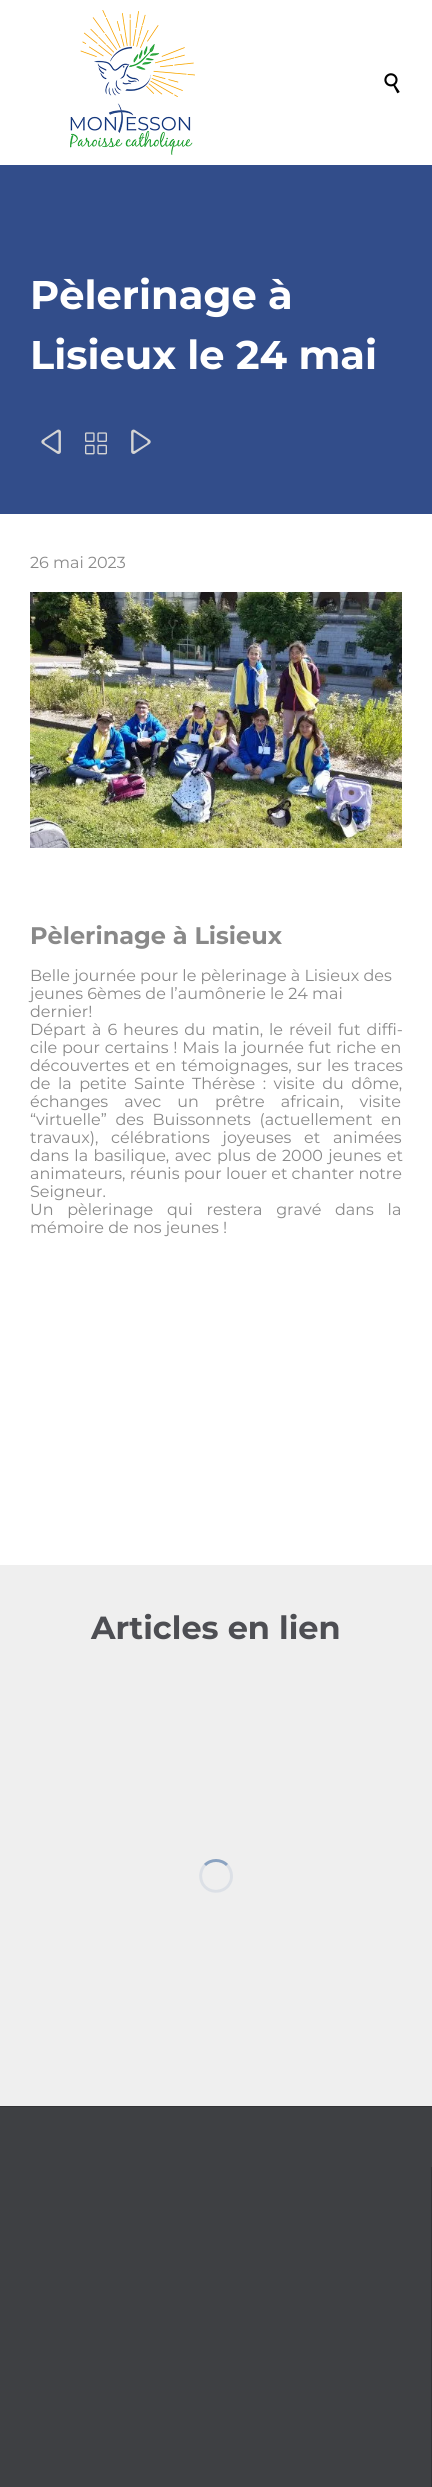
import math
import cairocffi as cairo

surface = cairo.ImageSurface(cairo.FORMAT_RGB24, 432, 2487)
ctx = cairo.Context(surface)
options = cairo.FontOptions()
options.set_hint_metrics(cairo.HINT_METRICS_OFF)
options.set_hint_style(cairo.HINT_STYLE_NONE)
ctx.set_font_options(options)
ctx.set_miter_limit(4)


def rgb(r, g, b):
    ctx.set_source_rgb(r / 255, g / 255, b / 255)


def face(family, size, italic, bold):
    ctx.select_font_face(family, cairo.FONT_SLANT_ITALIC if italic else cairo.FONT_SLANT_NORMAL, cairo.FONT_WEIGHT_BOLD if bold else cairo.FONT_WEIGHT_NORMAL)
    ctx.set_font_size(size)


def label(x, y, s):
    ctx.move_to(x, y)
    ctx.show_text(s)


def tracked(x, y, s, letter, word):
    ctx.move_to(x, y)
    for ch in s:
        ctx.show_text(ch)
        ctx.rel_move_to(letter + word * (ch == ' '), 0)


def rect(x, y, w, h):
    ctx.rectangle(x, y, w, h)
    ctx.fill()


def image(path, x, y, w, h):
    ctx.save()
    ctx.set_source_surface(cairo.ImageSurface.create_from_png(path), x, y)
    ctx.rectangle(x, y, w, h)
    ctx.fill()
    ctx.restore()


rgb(50, 77, 138)
ctx.paint()
rgb(255, 255, 255)
rect(0, 0, 432, 165)
image('image0.png', 70, 10, 125, 145)
image('image1.png', 384, 73, 16, 21)
face('Montserrat', 40, 0, 1)
label(30, 309, 'Pèlerinage à')
label(30, 369, 'Lisieux le 24 mai')
image('image2.png', 41, 429, 20, 25)
image('image3.png', 85, 432, 22, 23)
image('image4.png', 131, 429, 20, 25)
rect(0, 514, 432, 1051)
face('Montserrat', 16, 0, 0)
rgb(137, 137, 137)
label(30, 568, '26 mai 2023')
image('image5.png', 30, 592, 372, 256)
face('Montserrat', 24, 0, 1)
label(30, 944, 'Pèlerinage à Lisieux')
face('Montserrat', 16, 0, 0)
label(30, 981, 'Belle journée pour le pèlerinage à Lisieux des')
label(30, 999, 'jeunes 6èmes de l’aumônerie le 24 mai')
label(30, 1017, 'dernier!')
tracked(30, 1035, 'Départ à 6 heures du matin, le réveil fut diffi-', 0, 1.75)
tracked(30, 1053, 'cile pour certains ! Mais la journée fut riche en', 0, 0.5)
tracked(30, 1071, 'découvertes et en témoignages, sur les traces', 0, 1)
tracked(30, 1089, 'de la petite Sainte Thérèse : visite du dôme,', 0, 3.25)
tracked(30, 1107, 'échanges avec un prêtre africain, visite', 0, 12)
tracked(30, 1125, '“virtuelle” des Buissonnets (actuellement en', 0, 4.5)
tracked(30, 1143, 'travaux), célébrations joyeuses et animées', 0, 8.5)
tracked(30, 1161, 'dans la basilique, avec plus de 2000 jeunes et', 0, 1.25)
label(30, 1179, 'animateurs, réunis pour louer et chanter notre')
label(30, 1197, 'Seigneur.')
tracked(30, 1215, 'Un pèlerinage qui restera gravé dans la', 0, 9.5)
label(30, 1233, 'mémoire de nos jeunes !')
rgb(239, 239, 239)
rect(0, 1565, 432, 541)
face('Montserrat', 32, 0, 1)
rgb(77, 78, 83)
label(91, 1639, 'Articles en lien')
ctx.new_path()
ctx.move_to(205, 1865)
ctx.curve_to(211, 1859, 221, 1859, 227, 1865)
rgb(139, 163, 193)
ctx.set_line_width(3)
ctx.stroke()
ctx.new_path()
ctx.move_to(227, 1865)
ctx.curve_to(230, 1868, 231.5, 1872, 231.5, 1876)
ctx.curve_to(231.5, 1894.5, 204.5, 1897, 201, 1879)
ctx.curve_to(200, 1874, 201.5, 1868.5, 205, 1865)
ctx.set_source_rgba(0.447, 0.565, 0.714, 0.15)
ctx.stroke()
rgb(62, 64, 67)
rect(0, 2107, 432, 380)
rgb(50, 51, 54)
rect(0, 2106, 432, 1)
rect(431, 2167, 1, 320)
surface.write_to_png('render.png')
